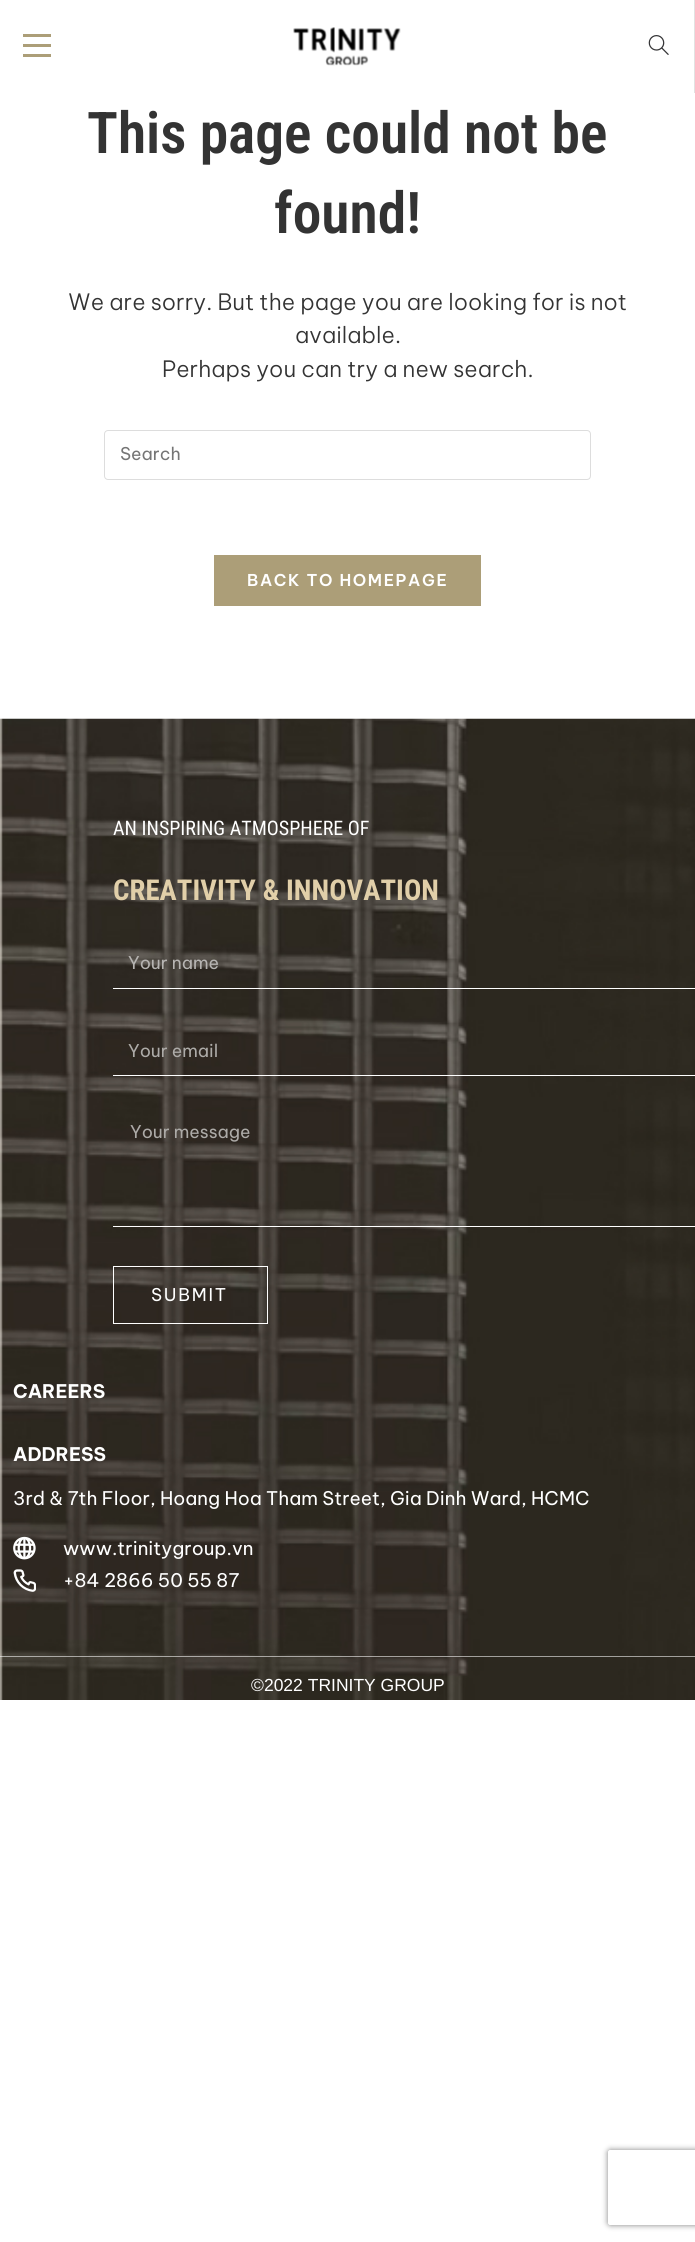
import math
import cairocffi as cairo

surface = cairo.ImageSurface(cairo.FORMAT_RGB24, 695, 2242)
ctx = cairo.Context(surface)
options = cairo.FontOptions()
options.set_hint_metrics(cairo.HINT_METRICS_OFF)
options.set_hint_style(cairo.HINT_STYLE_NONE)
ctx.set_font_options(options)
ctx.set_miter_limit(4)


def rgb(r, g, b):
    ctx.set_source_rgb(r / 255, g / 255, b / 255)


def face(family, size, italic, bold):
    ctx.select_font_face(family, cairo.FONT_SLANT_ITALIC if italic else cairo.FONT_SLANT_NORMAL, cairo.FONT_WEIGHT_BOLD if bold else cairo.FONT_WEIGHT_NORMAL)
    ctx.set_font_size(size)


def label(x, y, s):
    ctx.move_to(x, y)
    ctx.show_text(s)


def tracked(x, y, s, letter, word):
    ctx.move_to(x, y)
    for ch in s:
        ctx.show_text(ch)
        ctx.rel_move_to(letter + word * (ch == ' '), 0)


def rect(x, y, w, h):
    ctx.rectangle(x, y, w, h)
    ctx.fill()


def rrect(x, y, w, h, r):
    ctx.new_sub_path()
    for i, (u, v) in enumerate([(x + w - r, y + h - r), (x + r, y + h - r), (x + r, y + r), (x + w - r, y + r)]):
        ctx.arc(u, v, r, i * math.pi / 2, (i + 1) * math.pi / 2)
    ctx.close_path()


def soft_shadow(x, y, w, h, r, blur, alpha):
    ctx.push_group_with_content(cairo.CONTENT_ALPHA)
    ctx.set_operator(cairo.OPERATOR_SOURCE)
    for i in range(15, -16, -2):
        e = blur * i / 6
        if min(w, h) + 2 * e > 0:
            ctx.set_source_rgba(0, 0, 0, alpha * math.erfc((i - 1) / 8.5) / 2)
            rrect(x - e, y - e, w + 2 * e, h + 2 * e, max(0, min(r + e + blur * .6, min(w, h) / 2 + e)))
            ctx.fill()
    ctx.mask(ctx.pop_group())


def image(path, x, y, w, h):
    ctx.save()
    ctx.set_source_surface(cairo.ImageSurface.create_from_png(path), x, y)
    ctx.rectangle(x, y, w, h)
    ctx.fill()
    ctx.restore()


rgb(255, 255, 255)
ctx.paint()
rgb(226, 226, 226)
rect(694, 0, 1, 93)
rgb(172, 158, 120)
rect(23, 44, 28, 3)
rect(23, 34, 28, 3)
rect(23, 54, 28, 3)
image('image0.png', 293, 27, 108, 39)
image('image1.png', 648, 35, 21, 20)
face('Roboto Condensed SemiBold', 57.5, 0, 0)
rgb(51, 51, 51)
label(87, 153, 'This page could not be')
label(274, 233, 'found!')
face('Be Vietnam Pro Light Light', 22.5, 0, 0)
label(68, 310, 'We are sorry. But the page you are looking for is not')
label(295, 343, 'available.')
label(162, 377, 'Perhaps you can try a new search.')
rrect(104.5, 430.5, 486, 49, 3.5)
rgb(221, 221, 221)
ctx.set_line_width(1)
ctx.stroke()
face('Be Vietnam Pro', 17.5, 0, 0)
rgb(117, 117, 117)
label(120, 460, 'Search')
rgb(172, 158, 120)
rect(214, 555, 267, 51)
face('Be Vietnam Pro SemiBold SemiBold', 16.25, 0, 0)
rgb(255, 255, 255)
tracked(247, 586, 'BACK TO HOMEPAGE', 1.6, 0)
image('image2.png', 0, 718, 695, 982)
ctx.set_source_rgba(1, 1, 1, 0.56)
rect(0, 1656, 695, 1)
face('Roboto Condensed', 20, 0, 0)
rgb(255, 255, 255)
label(113, 835, 'AN INSPIRING ATMOSPHERE OF')
face('Roboto Condensed', 28.75, 0, 1)
rgb(225, 207, 169)
tracked(113, 900, 'CREATIVITY & INNOVATION', 0.05, 0)
rgb(255, 255, 255)
rect(113, 988, 582, 1)
face('Be Vietnam Pro', 17.5, 0, 0)
rgb(182, 180, 178)
label(128, 969, 'Your name')
rgb(255, 255, 255)
rect(113, 1075, 582, 1)
rgb(173, 171, 168)
label(128, 1057, 'Your email')
rgb(255, 255, 255)
rect(113, 1226, 582, 1)
rgb(173, 171, 168)
label(130, 1138, 'Your message')
ctx.rectangle(113.5, 1266.5, 154, 57)
rgb(255, 255, 255)
ctx.stroke()
tracked(151, 1301, 'SUBMIT', 1.75, 0)
ctx.save()
ctx.set_fill_rule(cairo.FILL_RULE_EVEN_ODD)
ctx.new_path()
ctx.move_to(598, 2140)
ctx.line_to(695, 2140)
ctx.line_to(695, 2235)
ctx.line_to(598, 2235)
ctx.close_path()
ctx.move_to(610.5, 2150)
ctx.line_to(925.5, 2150)
ctx.curve_to(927, 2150, 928, 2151, 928, 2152.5)
ctx.line_to(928, 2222.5)
ctx.curve_to(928, 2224, 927, 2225, 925.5, 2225)
ctx.line_to(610.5, 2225)
ctx.curve_to(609, 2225, 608, 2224, 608, 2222.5)
ctx.line_to(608, 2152.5)
ctx.curve_to(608, 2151, 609, 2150, 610.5, 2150)
ctx.close_path()
ctx.clip()
rgb(128, 128, 128)
soft_shadow(608, 2150, 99, 75, 2.5, 3, 1)
ctx.restore()
face('Be Vietnam Pro', 18.75, 0, 1)
label(13, 1398, 'CAREERS')
label(13, 1461, 'ADDRESS')
face('Be Vietnam Pro', 18.75, 0, 0)
label(13, 1505, '3rd & 7th Floor, Hoang Hoa Tham Street, Gia Dinh Ward, HCMC')
image('image3.png', 13, 1536, 23, 24)
label(63, 1555, 'www.trinitygroup.vn')
image('image4.png', 13, 1569, 23, 23)
label(63, 1587, '+84 2866 50 55 87')
face('Liberation Sans', 17.5, 0, 0)
label(251, 1691, '©2022 TRINITY GROUP')
surface.write_to_png('render.png')
